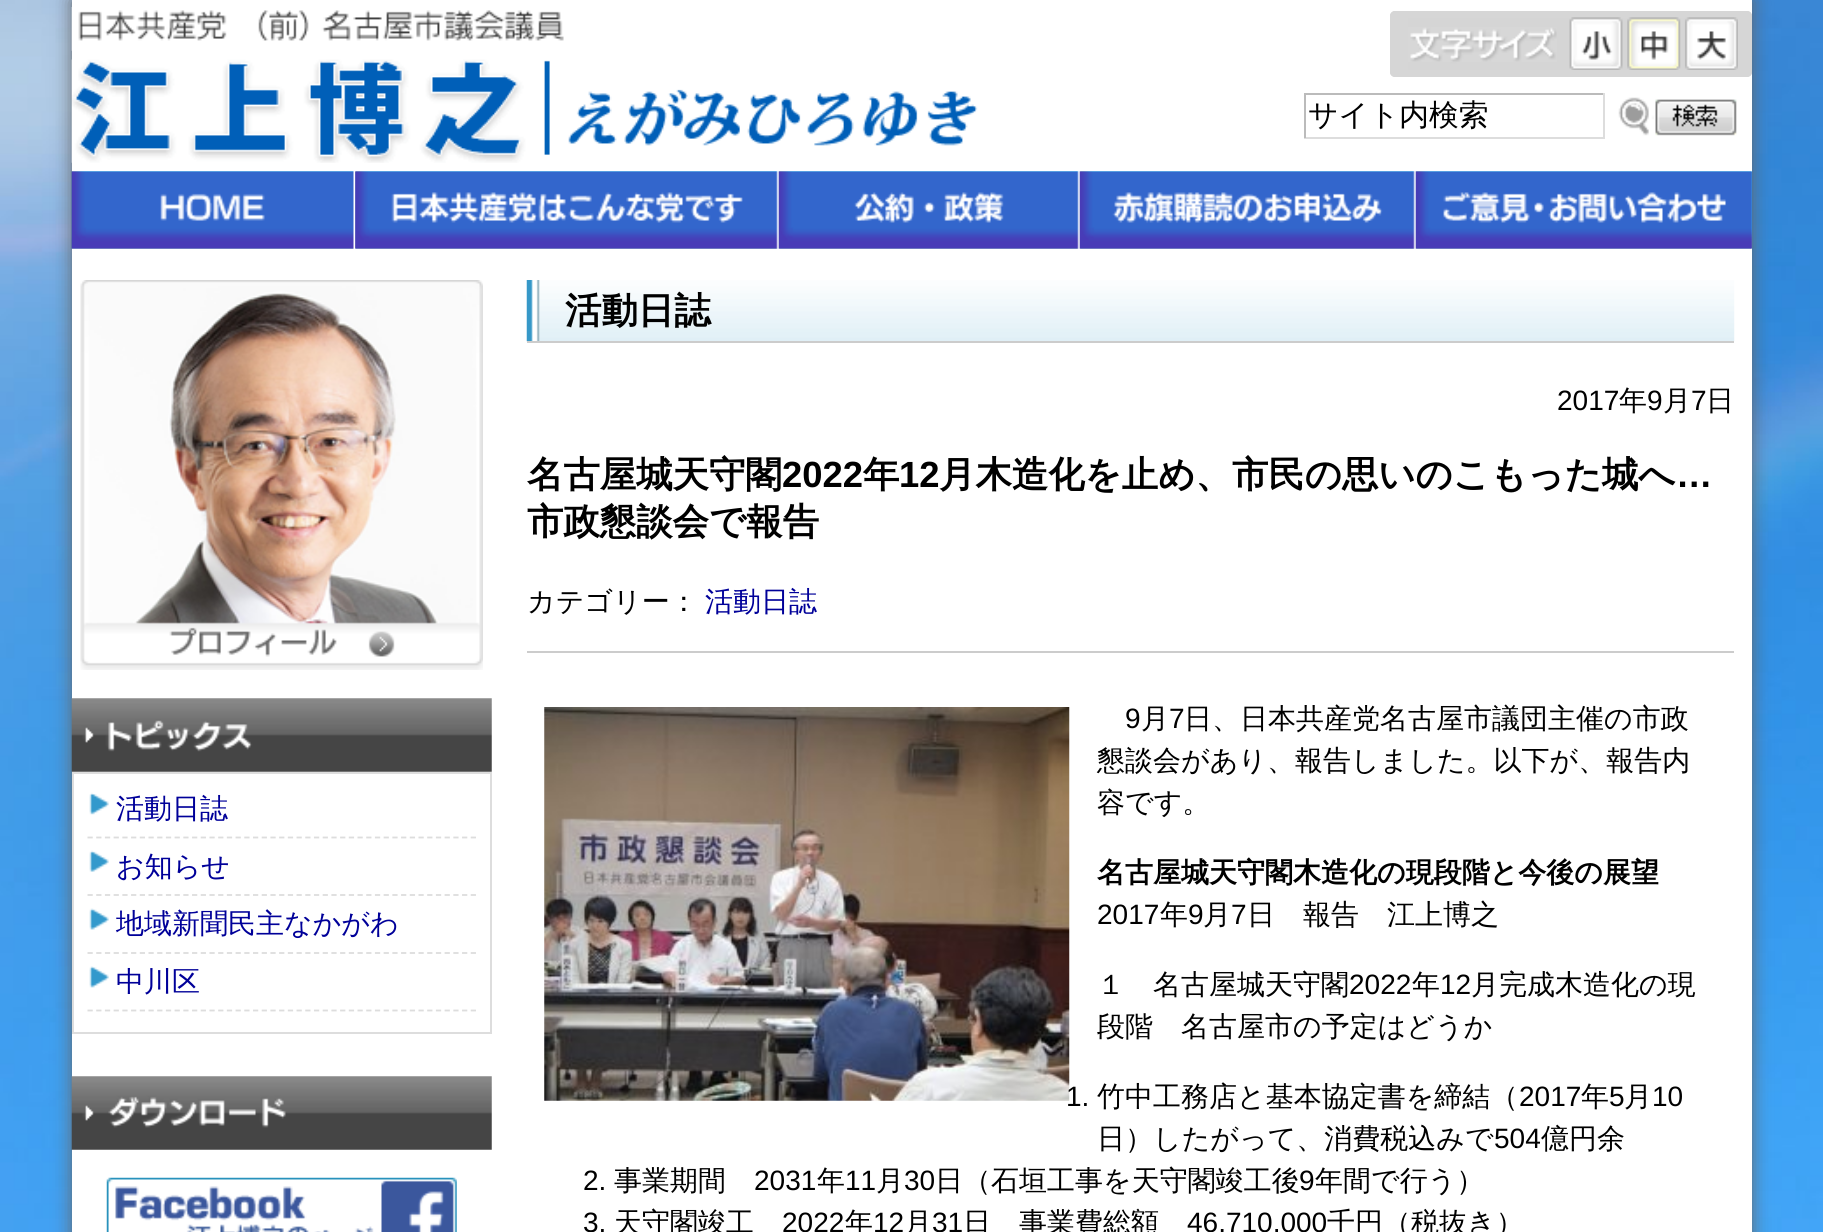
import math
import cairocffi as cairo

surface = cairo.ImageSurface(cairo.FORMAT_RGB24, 1823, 1232)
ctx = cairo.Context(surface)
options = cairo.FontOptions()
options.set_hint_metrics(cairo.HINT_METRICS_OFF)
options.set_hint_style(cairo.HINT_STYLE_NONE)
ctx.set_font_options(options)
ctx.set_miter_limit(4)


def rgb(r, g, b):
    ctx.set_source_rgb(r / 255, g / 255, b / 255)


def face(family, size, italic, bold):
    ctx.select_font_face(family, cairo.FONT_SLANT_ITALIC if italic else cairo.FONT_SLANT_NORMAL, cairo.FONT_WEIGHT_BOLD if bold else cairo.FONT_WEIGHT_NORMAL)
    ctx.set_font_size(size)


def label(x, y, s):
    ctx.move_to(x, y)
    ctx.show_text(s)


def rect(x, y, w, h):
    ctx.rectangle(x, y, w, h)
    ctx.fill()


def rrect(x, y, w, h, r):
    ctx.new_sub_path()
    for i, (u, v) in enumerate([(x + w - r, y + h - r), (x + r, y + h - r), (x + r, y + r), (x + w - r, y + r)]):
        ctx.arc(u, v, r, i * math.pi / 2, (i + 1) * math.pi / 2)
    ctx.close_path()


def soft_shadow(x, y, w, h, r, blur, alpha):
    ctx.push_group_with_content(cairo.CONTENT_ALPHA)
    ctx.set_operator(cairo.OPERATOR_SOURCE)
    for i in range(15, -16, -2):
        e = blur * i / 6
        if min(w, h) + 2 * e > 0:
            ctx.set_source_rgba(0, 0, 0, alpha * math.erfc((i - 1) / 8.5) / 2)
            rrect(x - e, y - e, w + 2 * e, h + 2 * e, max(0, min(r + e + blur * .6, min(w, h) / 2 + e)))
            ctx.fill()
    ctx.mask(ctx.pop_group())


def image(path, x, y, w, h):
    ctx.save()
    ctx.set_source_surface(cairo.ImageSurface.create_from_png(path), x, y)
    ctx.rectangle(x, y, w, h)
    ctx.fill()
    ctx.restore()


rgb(255, 255, 255)
ctx.paint()
image('image0.png', 1752, 0, 71, 1232)
image('image1.png', 0, 0, 72, 1232)
rgb(102, 102, 102)
soft_shadow(72, 0, 1680, 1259, 0, 9, 1)
rgb(255, 255, 255)
rect(72, 0, 1680, 1232)
image('image2.png', 71, 7, 493, 44)
image('image3.png', 71, 59, 907, 104)
rgb(214, 214, 214)
rrect(1390, 11, 362, 66, 5)
ctx.fill()
image('image4.png', 1408, 17, 330, 53)
rrect(1391, 12, 360, 64, 4)
ctx.stroke()
image('image5.png', 1408, 27, 149, 35)
image('image6.png', 1569, 17, 54, 52)
image('image7.png', 1627, 17, 53, 52)
image('image8.png', 1685, 17, 53, 52)
rgb(187, 187, 187)
rect(1304, 93, 301, 2)
rgb(221, 221, 221)
rect(1603, 93, 2, 45)
rect(1304, 137, 301, 2)
rgb(187, 187, 187)
rect(1304, 93, 2, 45)
face('WenQuanYi Zen Hei Medium', 29.75, 0, 0)
rgb(0, 0, 0)
label(1308, 125, 'サイト内検索')
image('image9.png', 1618, 97, 119, 39)
image('image10.png', 71, 171, 1681, 78)
image('image11.png', 71, 171, 285, 78)
image('image12.png', 355, 171, 424, 78)
image('image13.png', 778, 171, 302, 78)
image('image14.png', 1079, 171, 337, 78)
image('image15.png', 1415, 171, 337, 78)
image('image16.png', 80, 280, 403, 390)
image('image17.png', 71, 698, 421, 74)
ctx.rectangle(73, 773, 418, 260)
rgb(221, 221, 221)
ctx.stroke()
image('image18.png', 89, 792, 20, 23)
ctx.new_path()
ctx.move_to(87.5, 837.5)
ctx.line_to(476, 837.5)
ctx.set_line_width(1.8)
ctx.set_dash([5.25, 3.46])
ctx.stroke()
face('WenQuanYi Zen Hei Medium', 28, 0, 0)
rgb(0, 0, 153)
label(116, 818, '活動日誌')
image('image19.png', 89, 850, 20, 22)
ctx.new_path()
ctx.move_to(87.5, 895)
ctx.line_to(476, 895)
rgb(221, 221, 221)
ctx.stroke()
rgb(0, 0, 153)
label(116, 876, 'お知らせ')
image('image20.png', 89, 908, 20, 22)
ctx.new_path()
ctx.move_to(87.5, 953)
ctx.line_to(476, 953)
rgb(221, 221, 221)
ctx.stroke()
rgb(0, 0, 153)
label(116, 933, '地域新聞民主なかがわ')
image('image21.png', 89, 966, 20, 22)
ctx.new_path()
ctx.move_to(87.5, 1010.5)
ctx.line_to(476, 1010.5)
rgb(221, 221, 221)
ctx.stroke()
rgb(0, 0, 153)
label(116, 991, '中川区')
image('image22.png', 71, 1076, 421, 74)
image('image23.png', 106, 1177, 351, 55)
image('image24.png', 526, 280, 1209, 62)
rgb(204, 204, 204)
rect(527, 341, 1207, 2)
face('WenQuanYi Zen Hei', 36.4, 0, 1)
rgb(0, 0, 0)
label(565, 323, '活動日誌')
face('Liberation Sans', 28, 0, 0)
label(1557, 410, '2017')
face('WenQuanYi Zen Hei Medium', 28, 0, 0)
label(1619, 410, '年')
face('Liberation Sans', 28, 0, 0)
label(1647, 410, '9')
face('WenQuanYi Zen Hei Medium', 28, 0, 0)
label(1663, 410, '月')
face('Liberation Sans', 28, 0, 0)
label(1691, 410, '7')
face('WenQuanYi Zen Hei Medium', 28, 0, 0)
label(1706, 410, '日')
face('WenQuanYi Zen Hei', 36.4, 0, 1)
label(527, 487, '名古屋城天守閣')
face('Liberation Sans', 36.4, 0, 1)
label(782, 487, '2022')
face('WenQuanYi Zen Hei', 36.4, 0, 1)
label(863, 487, '年')
face('Liberation Sans', 36.4, 0, 1)
label(899, 487, '12')
face('WenQuanYi Zen Hei', 36.4, 0, 1)
label(939, 487, '月木造化を止め、市民の思いのこもった城へ')
face('Liberation Sans', 36.4, 0, 1)
label(1676, 487, '…')
face('WenQuanYi Zen Hei', 36.4, 0, 1)
label(527, 534, '市政懇談会で報告')
rgb(204, 204, 204)
rect(527, 651, 1207, 2)
face('WenQuanYi Zen Hei Medium', 28, 0, 0)
rgb(0, 0, 0)
label(527, 611, 'カテゴリー：')
rgb(0, 0, 153)
label(705, 611, '活動日誌')
image('image25.png', 544, 707, 526, 394)
face('Liberation Sans', 28, 0, 0)
rgb(0, 0, 0)
label(1125, 728, '9')
face('WenQuanYi Zen Hei Medium', 28, 0, 0)
label(1141, 728, '月')
face('Liberation Sans', 28, 0, 0)
label(1169, 728, '7')
face('WenQuanYi Zen Hei Medium', 28, 0, 0)
label(1184, 728, '日、日本共産党名古屋市議団主催の市政')
label(1097, 770, '懇談会があり、報告しました。以下が、報告内')
label(1097, 812, '容です。')
face('WenQuanYi Zen Hei', 28, 0, 1)
label(1097, 882, '名古屋城天守閣木造化の現段階と今後の展望')
face('Liberation Sans', 28, 0, 0)
label(1097, 924, '2017')
face('WenQuanYi Zen Hei Medium', 28, 0, 0)
label(1160, 924, '年')
face('Liberation Sans', 28, 0, 0)
label(1188, 924, '9')
face('WenQuanYi Zen Hei Medium', 28, 0, 0)
label(1203, 924, '月')
face('Liberation Sans', 28, 0, 0)
label(1231, 924, '7')
face('WenQuanYi Zen Hei Medium', 28, 0, 0)
label(1247, 924, '日　報告　江上博之')
label(1097, 994, '１　名古屋城天守閣')
face('Liberation Sans', 28, 0, 0)
label(1349, 994, '2022')
face('WenQuanYi Zen Hei Medium', 28, 0, 0)
label(1412, 994, '年')
face('Liberation Sans', 28, 0, 0)
label(1440, 994, '12')
face('WenQuanYi Zen Hei Medium', 28, 0, 0)
label(1471, 994, '月完成木造化の現')
label(1097, 1036, '段階　名古屋市の予定はどうか')
face('Liberation Sans', 28, 0, 0)
label(1066, 1106, '1.')
face('WenQuanYi Zen Hei Medium', 28, 0, 0)
label(1097, 1106, '竹中工務店と基本協定書を締結（')
face('Liberation Sans', 28, 0, 0)
label(1519, 1106, '2017')
face('WenQuanYi Zen Hei Medium', 28, 0, 0)
label(1581, 1106, '年')
face('Liberation Sans', 28, 0, 0)
label(1609, 1106, '5')
face('WenQuanYi Zen Hei Medium', 28, 0, 0)
label(1624, 1106, '月')
face('Liberation Sans', 28, 0, 0)
label(1652, 1106, '10')
face('WenQuanYi Zen Hei Medium', 28, 0, 0)
label(1097, 1148, '日）したがって、消費税込みで')
face('Liberation Sans', 28, 0, 0)
label(1494, 1148, '504')
face('WenQuanYi Zen Hei Medium', 28, 0, 0)
label(1541, 1148, '億円余')
face('Liberation Sans', 28, 0, 0)
label(583, 1190, '2.')
face('WenQuanYi Zen Hei Medium', 28, 0, 0)
label(614, 1190, '事業期間')
face('Liberation Sans', 28, 0, 0)
label(754, 1190, '2031')
face('WenQuanYi Zen Hei Medium', 28, 0, 0)
label(817, 1190, '年')
face('Liberation Sans', 28, 0, 0)
label(845, 1190, '11')
face('WenQuanYi Zen Hei Medium', 28, 0, 0)
label(876, 1190, '月')
face('Liberation Sans', 28, 0, 0)
label(904, 1190, '30')
face('WenQuanYi Zen Hei Medium', 28, 0, 0)
label(935, 1190, '日（石垣工事を天守閣竣工後')
face('Liberation Sans', 28, 0, 0)
label(1299, 1190, '9')
face('WenQuanYi Zen Hei Medium', 28, 0, 0)
label(1315, 1190, '年間で行う）')
face('Liberation Sans', 28, 0, 0)
label(583, 1232, '3.')
face('WenQuanYi Zen Hei Medium', 28, 0, 0)
label(614, 1232, '天守閣竣工')
face('Liberation Sans', 28, 0, 0)
label(782, 1232, '2022')
face('WenQuanYi Zen Hei Medium', 28, 0, 0)
label(845, 1232, '年')
face('Liberation Sans', 28, 0, 0)
label(873, 1232, '12')
face('WenQuanYi Zen Hei Medium', 28, 0, 0)
label(904, 1232, '月')
face('Liberation Sans', 28, 0, 0)
label(932, 1232, '31')
face('WenQuanYi Zen Hei Medium', 28, 0, 0)
label(963, 1232, '日　事業費総額')
face('Liberation Sans', 28, 0, 0)
label(1187, 1232, '46,710,000')
face('WenQuanYi Zen Hei Medium', 28, 0, 0)
label(1327, 1232, '千円（税抜き）')
surface.write_to_png('render.png')
